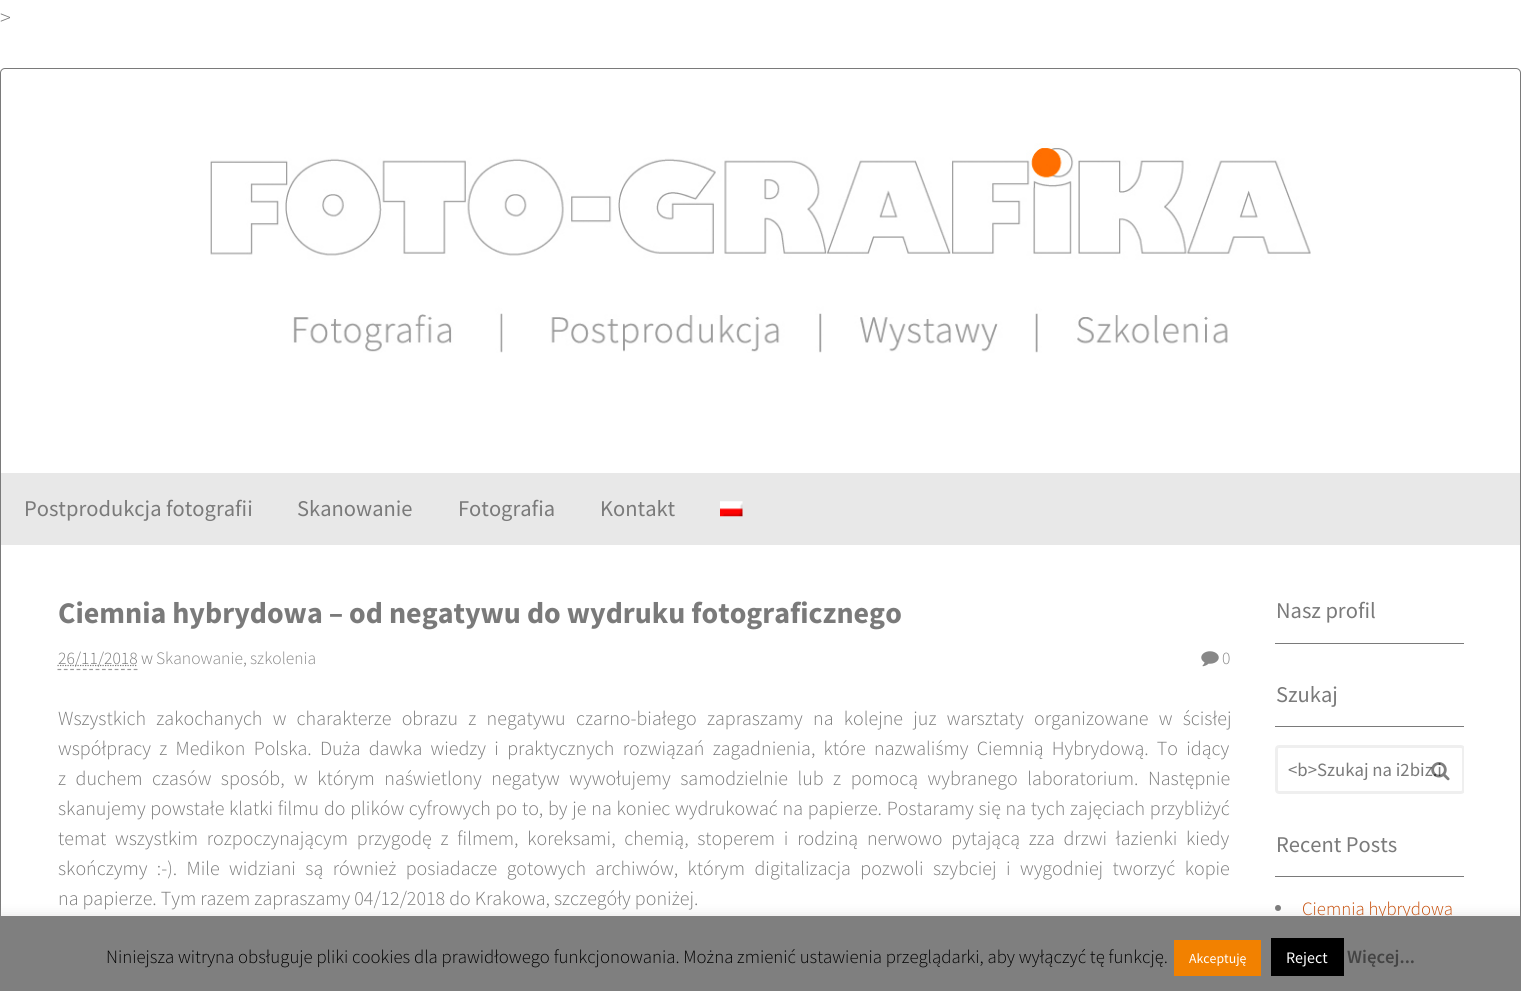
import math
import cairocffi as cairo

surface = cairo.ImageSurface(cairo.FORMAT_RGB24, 1521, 991)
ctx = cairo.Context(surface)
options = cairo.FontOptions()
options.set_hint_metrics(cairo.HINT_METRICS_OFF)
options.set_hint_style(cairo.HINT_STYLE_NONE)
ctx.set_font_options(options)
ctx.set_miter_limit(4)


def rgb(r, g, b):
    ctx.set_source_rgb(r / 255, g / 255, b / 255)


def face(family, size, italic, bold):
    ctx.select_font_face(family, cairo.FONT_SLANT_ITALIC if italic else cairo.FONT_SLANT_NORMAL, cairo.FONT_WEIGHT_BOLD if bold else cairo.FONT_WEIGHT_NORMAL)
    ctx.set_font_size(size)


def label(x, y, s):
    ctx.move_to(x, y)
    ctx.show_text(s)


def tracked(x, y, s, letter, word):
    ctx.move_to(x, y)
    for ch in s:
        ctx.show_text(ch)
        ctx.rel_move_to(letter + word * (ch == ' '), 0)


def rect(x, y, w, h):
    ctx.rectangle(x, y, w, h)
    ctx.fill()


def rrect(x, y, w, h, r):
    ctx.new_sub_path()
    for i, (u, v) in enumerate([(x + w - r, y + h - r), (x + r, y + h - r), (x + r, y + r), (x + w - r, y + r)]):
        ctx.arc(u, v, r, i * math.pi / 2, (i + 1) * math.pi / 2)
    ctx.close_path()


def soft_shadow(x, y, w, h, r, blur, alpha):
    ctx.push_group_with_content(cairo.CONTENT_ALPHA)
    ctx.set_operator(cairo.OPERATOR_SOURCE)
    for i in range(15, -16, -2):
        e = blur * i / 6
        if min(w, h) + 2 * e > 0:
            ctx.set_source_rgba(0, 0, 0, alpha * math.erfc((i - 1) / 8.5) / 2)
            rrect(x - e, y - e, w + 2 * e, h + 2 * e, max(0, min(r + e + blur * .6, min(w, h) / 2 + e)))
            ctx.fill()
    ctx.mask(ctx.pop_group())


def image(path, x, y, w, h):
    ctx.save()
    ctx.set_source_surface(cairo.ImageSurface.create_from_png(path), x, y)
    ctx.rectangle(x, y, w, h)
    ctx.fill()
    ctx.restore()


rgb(255, 255, 255)
ctx.paint()
face('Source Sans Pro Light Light', 22.5, 0, 0)
rgb(122, 122, 122)
label(0, 25, '>')
rrect(0.5, 68.5, 1520, 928, 4.5)
ctx.set_line_width(1)
ctx.stroke()
image('image0.png', 210, 143, 1101, 210)
rgb(232, 232, 232)
rect(1, 473, 1519, 72)
face('Source Sans Pro', 22.5, 0, 0)
rgb(122, 122, 122)
label(24, 516, 'Postprodukcja fotografii')
label(297, 516, 'Skanowanie')
label(458, 516, 'Fotografia')
label(600, 516, 'Kontakt')
image('image1.png', 720, 501, 23, 16)
face('Source Sans Pro', 30, 0, 1)
label(58, 623, 'Ciemnia hybrydowa – od negatywu do wydruku fotograficznego')
ctx.new_path()
ctx.move_to(57.5, 665.5)
ctx.line_to(137, 665.5)
ctx.set_line_width(1.2)
ctx.set_dash([1.25, 1.25])
ctx.stroke()
face('Source Sans Pro Light Light', 17.5, 0, 0)
label(58, 664, '26/11/2018 w')
ctx.new_path()
ctx.move_to(57.5, 669.5)
ctx.line_to(137.5, 669.5)
rgb(153, 153, 153)
ctx.set_dash([3.75, 2.6])
ctx.stroke()
rgb(136, 136, 136)
label(156, 664, 'Skanowanie')
rgb(122, 122, 122)
label(243, 664, ',')
rgb(136, 136, 136)
label(250, 664, 'szkolenia')
image('image2.png', 1201, 651, 18, 16)
label(1222, 664, '0')
face('Source Sans Pro Light Light', 20, 0, 0)
rgb(122, 122, 122)
tracked(58, 725, 'Wszystkich zakochanych w charakterze obrazu z negatywu czarno-białego zapraszamy na kolejne juz warsztaty organizowane w ścisłej', 0, 6.25)
tracked(58, 755, 'współpracy z Medikon Polska. Duża dawka wiedzy i praktycznych rozwiązań zagadnienia, które nazwaliśmy Ciemnią Hybrydową. To idący', 0, 4.25)
tracked(58, 785, 'z duchem czasów sposób, w którym naświetlony negatyw wywołujemy samodzielnie lub z pomocą wybranego laboratorium. Następnie', 0, 5.5)
tracked(58, 815, 'skanujemy powstałe klatki filmu do plików cyfrowych po to, by je na koniec wydrukować na papierze. Postaramy się na tych zajęciach przybliżyć', 0, 0.75)
tracked(58, 845, 'temat wszystkim rozpoczynającym przygodę z filmem, koreksami, chemią, stoperem i rodziną nerwowo pytającą zza drzwi łazienki kiedy', 0, 4.75)
tracked(58, 875, 'skończymy :-). Mile widziani są również posiadacze gotowych archiwów, którym digitalizacja pozwoli szybciej i wygodniej tworzyć kopie', 0, 5.4)
label(58, 905, 'na papierze. Tym razem zapraszamy 04/12/2018 do Krakowa, szczegóły poniżej.')
rect(1275, 643, 189, 1)
face('Source Sans Pro', 22.5, 0, 0)
label(1276, 618, 'Nasz profil')
rect(1275, 726, 189, 1)
label(1276, 702, 'Szukaj')
ctx.save()
ctx.rectangle(1275, 598, 189, 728)
ctx.clip()
rrect(1276.5, 746.5, 187, 46, 2.5)
rgb(239, 239, 239)
ctx.set_line_width(3)
ctx.set_dash([])
ctx.stroke()
ctx.restore()
face('Source Sans Pro', 18.75, 0, 0)
label(1288, 776, '<b>Szukaj na i2biz.i')
image('image3.png', 1431, 762, 19, 19)
rect(1275, 876, 189, 1)
face('Source Sans Pro', 22.5, 0, 0)
label(1276, 852, 'Recent Posts')
ctx.new_path()
ctx.arc(1278, 908, 3, 0, 2 * math.pi)
ctx.fill()
face('Source Sans Pro Light Light', 18.75, 0, 0)
rgb(198, 72, 0)
label(1302, 915, 'Ciemnia hybrydowa')
rgb(172, 171, 171)
soft_shadow(0, 915, 1521, 75, 0, 6, 0.3)
rgb(127, 127, 127)
rect(0, 916, 1521, 75)
rgb(0, 0, 0)
label(106, 963, 'Niniejsza witryna obsługuje pliki cookies dla prawidłowego funkcjonowania. Można zmienić ustawienia przeglądarki, aby wyłączyć tę funkcję.')
rgb(242, 129, 0)
rect(1174, 940, 87, 36)
face('Source Sans Pro', 13.75, 0, 0)
rgb(255, 255, 255)
label(1189, 963, 'Akceptuję')
rgb(0, 0, 0)
rect(1271, 938, 73, 38)
face('Source Sans Pro', 16, 0, 0)
rgb(255, 255, 255)
label(1286, 963, 'Reject')
face('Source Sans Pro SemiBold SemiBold', 18.75, 0, 0)
rgb(68, 68, 68)
label(1347, 963, 'Więcej...')
surface.write_to_png('render.png')
